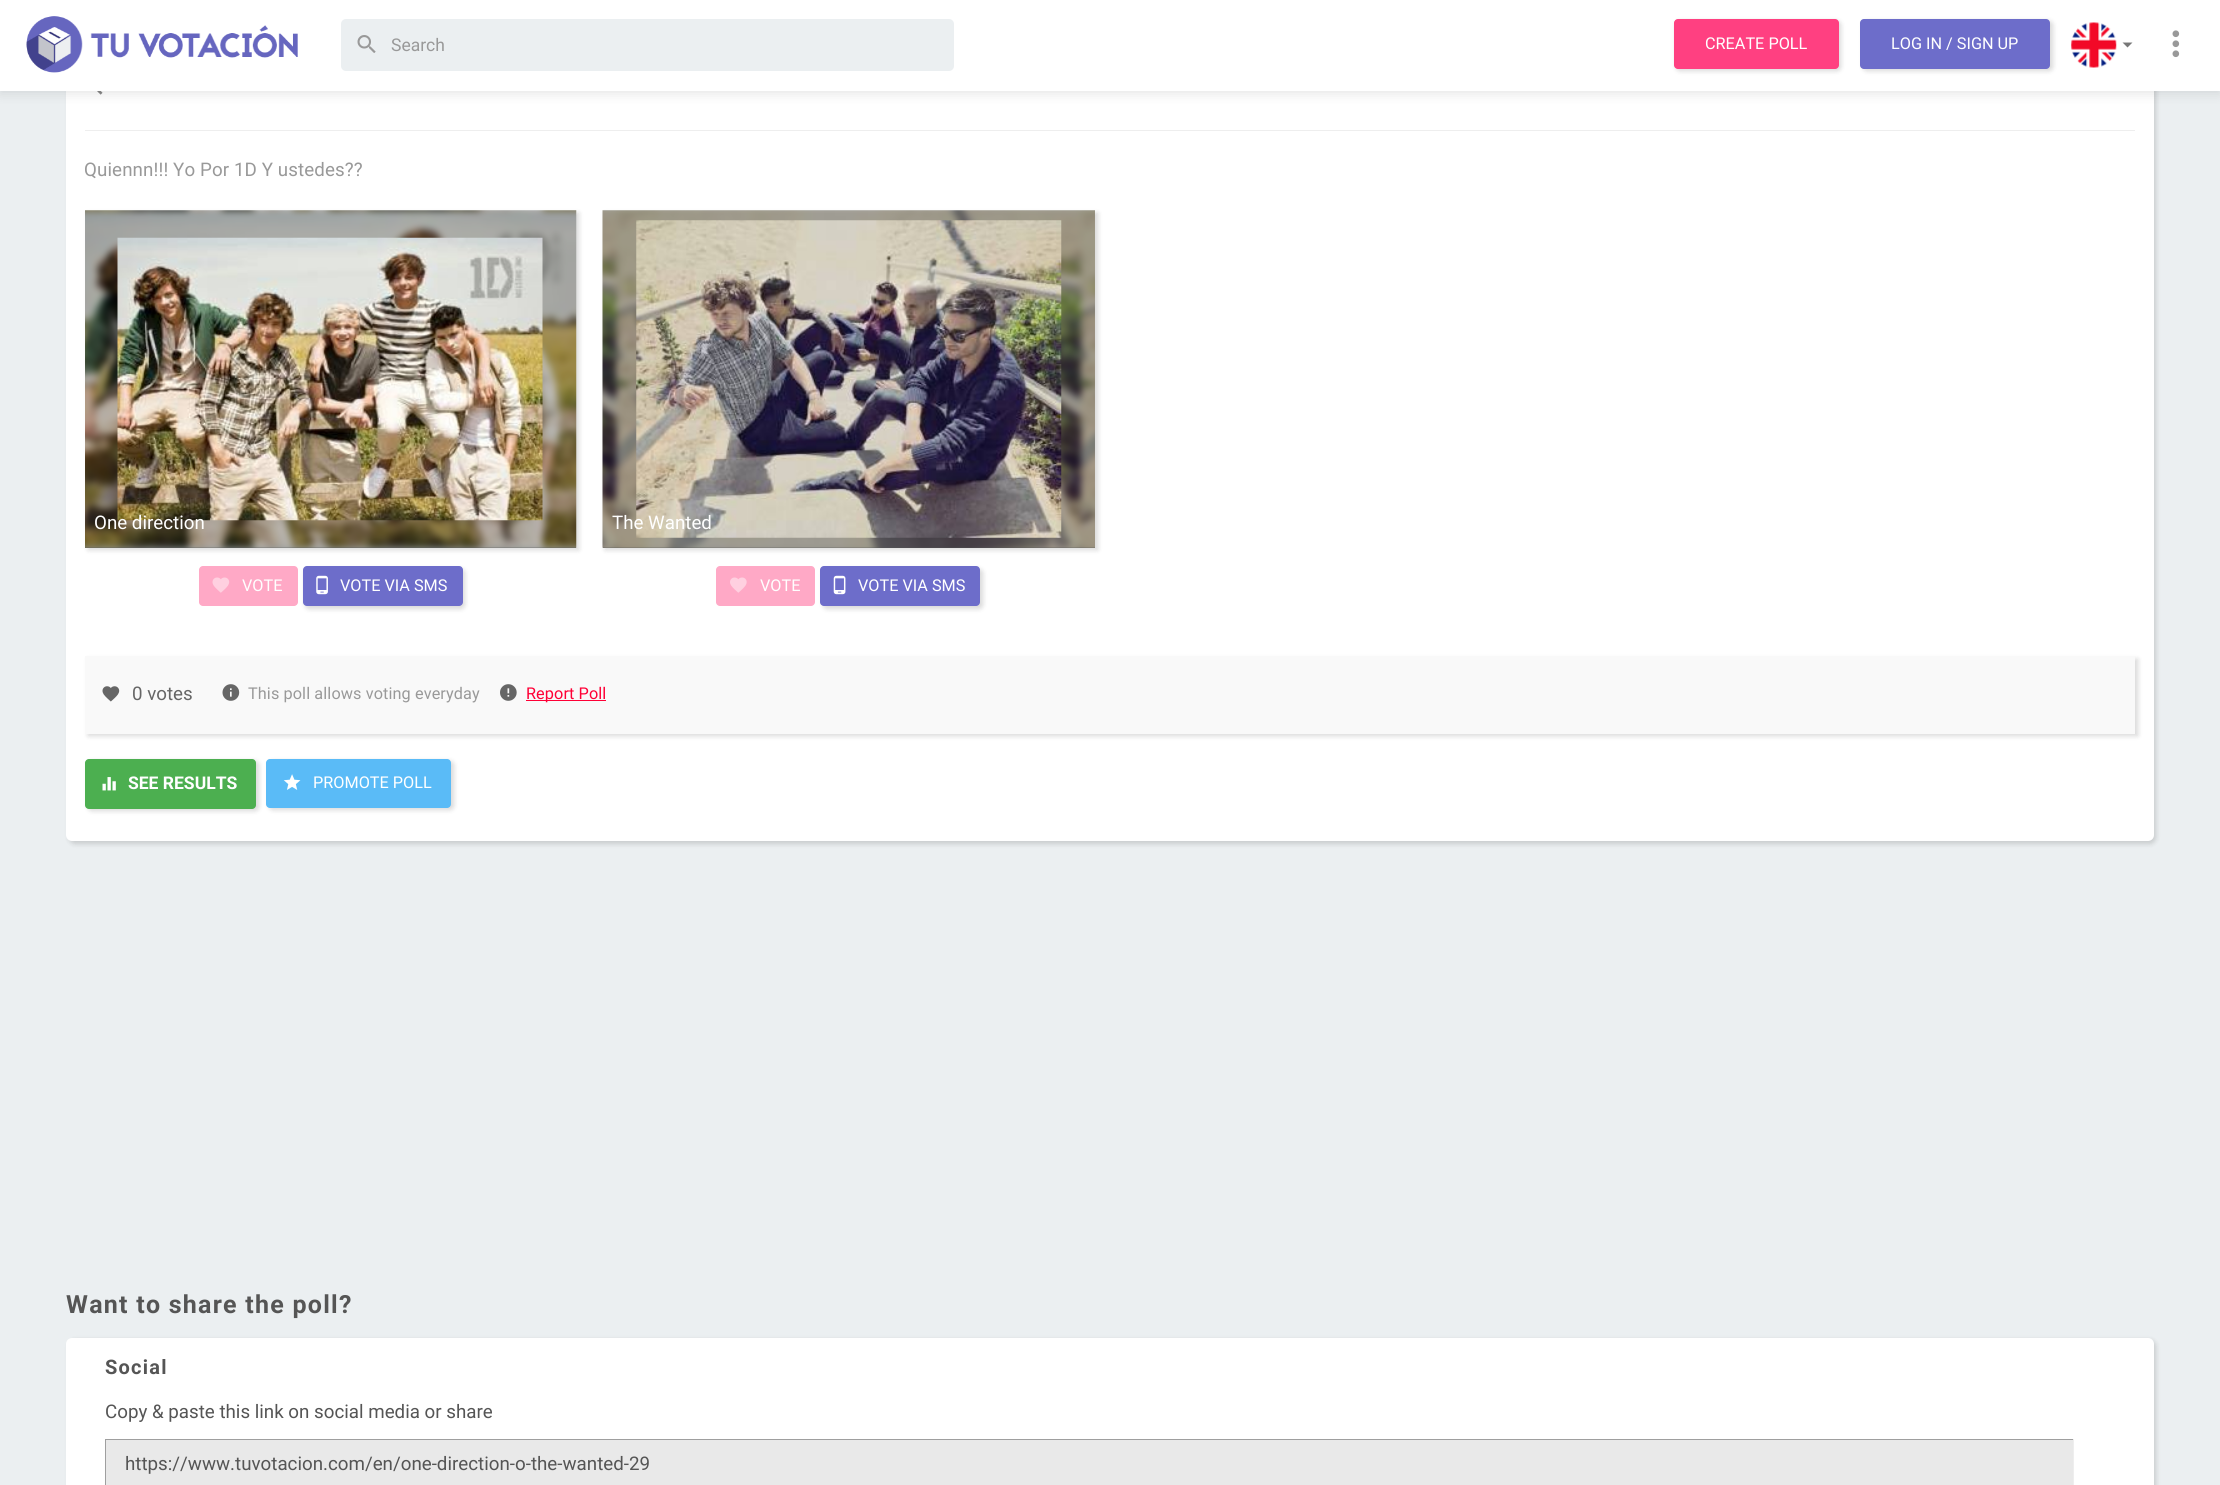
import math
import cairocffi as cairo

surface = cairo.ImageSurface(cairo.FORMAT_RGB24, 2220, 1485)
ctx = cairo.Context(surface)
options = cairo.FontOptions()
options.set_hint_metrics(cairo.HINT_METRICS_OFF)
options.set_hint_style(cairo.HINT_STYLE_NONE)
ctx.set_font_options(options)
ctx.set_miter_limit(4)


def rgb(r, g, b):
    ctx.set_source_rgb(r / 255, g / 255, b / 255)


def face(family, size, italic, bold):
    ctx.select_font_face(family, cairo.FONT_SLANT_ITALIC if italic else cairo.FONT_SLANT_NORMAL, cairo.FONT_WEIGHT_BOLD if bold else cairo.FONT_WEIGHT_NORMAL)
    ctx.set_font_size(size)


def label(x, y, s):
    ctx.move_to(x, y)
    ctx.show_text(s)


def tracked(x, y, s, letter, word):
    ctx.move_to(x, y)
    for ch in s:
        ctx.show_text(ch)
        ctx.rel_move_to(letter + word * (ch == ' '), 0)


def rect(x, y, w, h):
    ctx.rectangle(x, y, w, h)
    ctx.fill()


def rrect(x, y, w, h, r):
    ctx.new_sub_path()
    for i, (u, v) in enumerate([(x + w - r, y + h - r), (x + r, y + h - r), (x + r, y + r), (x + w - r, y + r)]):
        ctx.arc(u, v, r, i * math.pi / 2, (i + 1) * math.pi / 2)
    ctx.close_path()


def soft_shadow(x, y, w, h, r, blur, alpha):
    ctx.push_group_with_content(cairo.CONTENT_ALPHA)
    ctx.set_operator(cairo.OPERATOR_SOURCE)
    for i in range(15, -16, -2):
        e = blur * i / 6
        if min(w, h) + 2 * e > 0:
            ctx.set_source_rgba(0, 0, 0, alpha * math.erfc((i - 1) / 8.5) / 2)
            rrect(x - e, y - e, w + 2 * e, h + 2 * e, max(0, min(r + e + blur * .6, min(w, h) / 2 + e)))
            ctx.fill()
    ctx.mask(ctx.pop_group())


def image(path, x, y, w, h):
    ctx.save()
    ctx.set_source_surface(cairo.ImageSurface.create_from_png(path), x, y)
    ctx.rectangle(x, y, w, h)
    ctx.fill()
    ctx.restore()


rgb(235, 239, 241)
ctx.paint()
rgb(0, 0, 0)
soft_shadow(69, 45, 2087, 799, 6, 2.5, 0.15)
rgb(255, 255, 255)
rrect(66, 43, 2088, 798, 6)
ctx.fill()
image('image4.png', 97, 91, 6, 4)
rgb(0, 0, 0)
soft_shadow(0, 3, 2220, 91, 0, 5.5, 0.1)
rgb(255, 255, 255)
rect(0, 0, 2220, 91)
image('image0.png', 26, 16, 272, 57)
rgb(235, 239, 241)
rrect(341, 19, 613, 52, 5)
ctx.fill()
image('image1.png', 357, 35, 19, 18)
face('Roboto', 17.5, 0, 0)
rgb(153, 153, 153)
label(391, 51, 'Search')
rgb(0, 0, 0)
soft_shadow(1676, 21, 165, 50, 4, 2.5, 0.15)
rgb(255, 64, 129)
rrect(1674, 19, 165, 50, 4)
ctx.fill()
face('Roboto', 16.25, 0, 0)
rgb(255, 255, 255)
label(1705, 49, 'CREATE POLL')
rgb(0, 0, 0)
soft_shadow(1863, 21, 190, 50, 4, 2.5, 0.15)
rgb(109, 109, 202)
rrect(1860, 19, 190, 50, 4)
ctx.fill()
rgb(255, 255, 255)
label(1891, 49, 'LOG IN / SIGN UP')
image('image2.png', 2071, 22, 46, 46)
rgb(119, 119, 119)
ctx.new_path()
ctx.move_to(2122.5, 42.5)
ctx.line_to(2132.5, 42.5)
ctx.line_to(2127.5, 47.5)
ctx.close_path()
ctx.fill()
image('image3.png', 2172, 30, 8, 28)
rgb(238, 238, 238)
rect(85, 130, 2050, 1)
face('Roboto', 18.75, 0, 0)
rgb(153, 153, 153)
tracked(84, 176, 'Quiennn!!! Yo Por 1D Y ustedes??', 0.1, 0)
rgb(0, 0, 0)
soft_shadow(88, 213, 491, 337, 0, 2.5, 0.15)
rgb(235, 239, 241)
rect(85, 210, 491, 250)
gradient = cairo.LinearGradient(331, 460, 331, 548)
gradient.add_color_stop_rgba(0, 0.922, 0.937, 0.945, 1)
gradient.add_color_stop_rgba(1, 0.322, 0.329, 0.329, 1)
ctx.set_source(gradient)
rect(85, 460, 491, 88)
image('image5.png', 85, 210, 492, 338)
image('image6.png', 117, 237, 426, 284)
rgb(255, 255, 255)
label(94, 529, 'One direction')
rgb(255, 169, 198)
rrect(199, 566, 99, 40, 4)
ctx.fill()
image('image7.png', 212, 577, 18, 16)
face('Roboto', 16.25, 0, 0)
rgb(255, 255, 255)
label(242, 591, 'VOTE')
rgb(0, 0, 0)
soft_shadow(305, 569, 160, 40, 4, 2.5, 0.15)
rgb(109, 109, 202)
rrect(303, 566, 160, 40, 4)
ctx.fill()
image('image8.png', 316, 575, 12, 20)
rgb(255, 255, 255)
label(340, 591, 'VOTE VIA SMS')
rgb(0, 0, 0)
soft_shadow(605, 213, 493, 337, 0, 2.5, 0.15)
rgb(235, 239, 241)
rect(603, 210, 492, 250)
gradient = cairo.LinearGradient(849, 460, 849, 548)
gradient.add_color_stop_rgba(0, 0.922, 0.937, 0.945, 1)
gradient.add_color_stop_rgba(1, 0.322, 0.329, 0.329, 1)
ctx.set_source(gradient)
rect(603, 460, 492, 88)
image('image9.png', 602, 210, 493, 338)
image('image10.png', 636, 220, 426, 318)
face('Roboto', 18.75, 0, 0)
rgb(255, 255, 255)
label(612, 529, 'The Wanted')
rgb(255, 169, 198)
rrect(716, 566, 99, 40, 4)
ctx.fill()
image('image11.png', 730, 577, 17, 16)
face('Roboto', 16.25, 0, 0)
rgb(255, 255, 255)
label(760, 591, 'VOTE')
rgb(0, 0, 0)
soft_shadow(823, 569, 160, 40, 4, 2.5, 0.15)
rgb(109, 109, 202)
rrect(820, 566, 160, 40, 4)
ctx.fill()
image('image12.png', 833, 575, 13, 20)
rgb(255, 255, 255)
label(858, 591, 'VOTE VIA SMS')
rgb(0, 0, 0)
soft_shadow(88, 659, 2050, 77, 0, 2.5, 0.15)
rgb(249, 249, 249)
rect(85, 656, 2050, 78)
image('image13.png', 102, 686, 18, 16)
face('Roboto', 18.75, 0, 0)
rgb(102, 102, 102)
label(132, 700, '0 votes')
image('image14.png', 222, 684, 18, 17)
face('Roboto', 16.25, 0, 0)
rgb(153, 153, 153)
tracked(248, 699, 'This poll allows voting everyday', 0.1, 0)
image('image15.png', 500, 684, 17, 17)
rgb(255, 0, 54)
rect(526, 700, 80, 1)
tracked(526, 699, 'Report Poll', 0.1, 0)
rgb(0, 0, 0)
soft_shadow(88, 761, 171, 50, 4, 2.5, 0.15)
rgb(76, 175, 80)
rrect(85, 759, 171, 50, 4)
ctx.fill()
image('image16.png', 102, 777, 14, 14)
face('Roboto', 17.5, 0, 1)
rgb(255, 255, 255)
label(128, 789, 'SEE RESULTS')
rgb(0, 0, 0)
soft_shadow(269, 761, 185, 49, 4, 2.5, 0.15)
rgb(90, 187, 247)
rrect(266, 759, 185, 49, 4)
ctx.fill()
image('image17.png', 283, 774, 18, 16)
face('Roboto', 16.25, 0, 0)
rgb(255, 255, 255)
label(313, 788, 'PROMOTE POLL')
face('Roboto', 25, 0, 1)
rgb(85, 85, 85)
tracked(66, 1313, 'Want to share the poll?', 1.25, 0)
rgb(0, 0, 0)
soft_shadow(69, 1340, 2087, 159, 6, 2.5, 0.15)
rgb(255, 255, 255)
rrect(66, 1338, 2088, 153, 6)
ctx.fill()
face('Roboto', 20, 0, 1)
rgb(85, 85, 85)
tracked(105, 1374, 'Social', 1.25, 0)
face('Roboto', 18.75, 0, 0)
label(105, 1418, 'Copy & paste this link on social media or share')
rgb(233, 233, 233)
rect(106, 1440, 1967, 45)
rgb(159, 159, 159)
rect(105, 1439, 1969, 1)
rgb(238, 238, 238)
rect(2073, 1439, 1, 46)
rgb(159, 159, 159)
rect(105, 1439, 1, 46)
rgb(85, 85, 85)
label(125, 1470, 'https://www.tuvotacion.com/en/one-direction-o-the-wanted-29')
surface.write_to_png('render.png')
